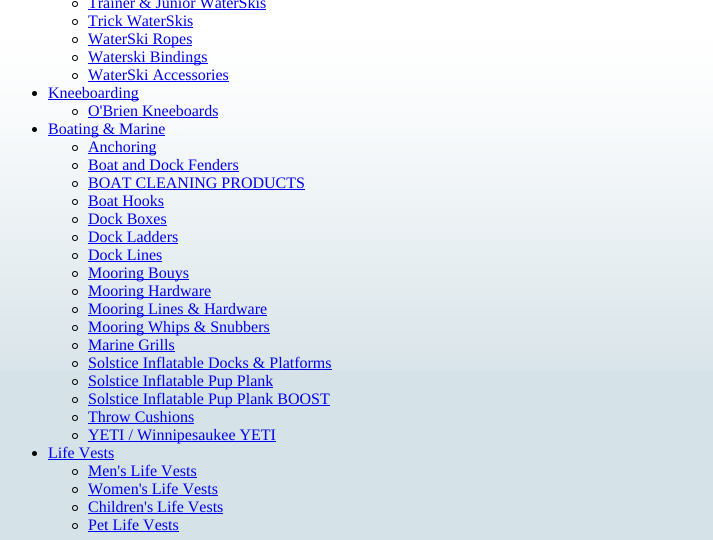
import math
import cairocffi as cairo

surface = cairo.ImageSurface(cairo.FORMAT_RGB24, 713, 540)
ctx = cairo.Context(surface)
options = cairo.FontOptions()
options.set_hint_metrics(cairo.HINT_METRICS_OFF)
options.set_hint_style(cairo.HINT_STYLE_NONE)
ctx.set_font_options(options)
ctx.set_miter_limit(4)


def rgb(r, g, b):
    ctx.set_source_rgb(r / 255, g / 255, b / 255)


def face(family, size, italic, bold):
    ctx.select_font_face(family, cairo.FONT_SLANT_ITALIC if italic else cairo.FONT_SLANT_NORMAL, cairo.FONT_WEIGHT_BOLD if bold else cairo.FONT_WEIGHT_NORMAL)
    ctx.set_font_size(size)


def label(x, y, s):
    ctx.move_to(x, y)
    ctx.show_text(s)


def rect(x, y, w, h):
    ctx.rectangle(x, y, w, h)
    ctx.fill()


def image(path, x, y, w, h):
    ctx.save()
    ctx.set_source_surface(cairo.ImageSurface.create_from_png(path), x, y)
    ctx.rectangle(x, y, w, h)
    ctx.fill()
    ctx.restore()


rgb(213, 226, 232)
ctx.paint()
image('image0.png', 0, 0, 713, 371)
ctx.arc(75, 4, 2.5, 0, 2 * math.pi)
rgb(0, 0, 0)
ctx.set_line_width(1)
ctx.stroke()
face('Liberation Serif', 16, 0, 0)
rgb(0, 0, 238)
label(88, 8, 'Trainer & Junior WaterSkis')
rect(88, 9, 178, 1)
ctx.new_path()
ctx.arc(75, 22, 2.5, 0, 2 * math.pi)
rgb(0, 0, 0)
ctx.stroke()
rgb(0, 0, 238)
label(88, 26, 'Trick WaterSkis')
rect(88, 27, 105, 1)
ctx.new_path()
ctx.arc(75, 40, 2.5, 0, 2 * math.pi)
rgb(0, 0, 0)
ctx.stroke()
rgb(0, 0, 238)
rect(88, 45, 104, 1)
label(88, 44, 'WaterSki Ropes')
ctx.new_path()
ctx.arc(75, 58, 2.5, 0, 2 * math.pi)
rgb(0, 0, 0)
ctx.stroke()
rgb(0, 0, 238)
rect(88, 63, 120, 1)
label(88, 62, 'Waterski Bindings')
ctx.new_path()
ctx.arc(75, 76, 2.5, 0, 2 * math.pi)
rgb(0, 0, 0)
ctx.stroke()
rgb(0, 0, 238)
label(88, 80, 'WaterSki Accessories')
rect(88, 81, 141, 1)
rgb(0, 0, 0)
ctx.new_path()
ctx.arc(34.5, 93.5, 2.5, 0, 2 * math.pi)
ctx.fill()
rgb(0, 0, 238)
rect(48, 99, 91, 1)
label(48, 98, 'Kneeboarding')
ctx.new_path()
ctx.arc(75, 112, 2.5, 0, 2 * math.pi)
rgb(0, 0, 0)
ctx.stroke()
rgb(0, 0, 238)
label(88, 116, 'O\'Brien Kneeboards')
rect(88, 117, 130, 1)
rgb(0, 0, 0)
ctx.new_path()
ctx.arc(34.5, 129.5, 2.5, 0, 2 * math.pi)
ctx.fill()
rgb(0, 0, 238)
rect(48, 135, 117, 1)
label(48, 134, 'Boating & Marine')
ctx.new_path()
ctx.arc(75, 148, 2.5, 0, 2 * math.pi)
rgb(0, 0, 0)
ctx.stroke()
rgb(0, 0, 238)
rect(88, 153, 68, 1)
label(88, 152, 'Anchoring')
ctx.new_path()
ctx.arc(75, 166, 2.5, 0, 2 * math.pi)
rgb(0, 0, 0)
ctx.stroke()
rgb(0, 0, 238)
label(88, 170, 'Boat and Dock Fenders')
rect(88, 171, 151, 1)
ctx.new_path()
ctx.arc(75, 184, 2.5, 0, 2 * math.pi)
rgb(0, 0, 0)
ctx.stroke()
rgb(0, 0, 238)
label(88, 188, 'BOAT CLEANING PRODUCTS')
rect(88, 189, 217, 1)
ctx.new_path()
ctx.arc(75, 202, 2.5, 0, 2 * math.pi)
rgb(0, 0, 0)
ctx.stroke()
rgb(0, 0, 238)
label(88, 206, 'Boat Hooks')
rect(88, 207, 76, 1)
ctx.new_path()
ctx.arc(75, 220, 2.5, 0, 2 * math.pi)
rgb(0, 0, 0)
ctx.stroke()
rgb(0, 0, 238)
label(88, 224, 'Dock Boxes')
rect(88, 225, 79, 1)
ctx.new_path()
ctx.arc(75, 238, 2.5, 0, 2 * math.pi)
rgb(0, 0, 0)
ctx.stroke()
rgb(0, 0, 238)
label(88, 242, 'Dock Ladders')
rect(88, 243, 90, 1)
ctx.new_path()
ctx.arc(75, 256, 2.5, 0, 2 * math.pi)
rgb(0, 0, 0)
ctx.stroke()
rgb(0, 0, 238)
label(88, 260, 'Dock Lines')
rect(88, 261, 74, 1)
ctx.new_path()
ctx.arc(75, 274, 2.5, 0, 2 * math.pi)
rgb(0, 0, 0)
ctx.stroke()
rgb(0, 0, 238)
rect(88, 279, 101, 1)
label(88, 278, 'Mooring Bouys')
ctx.new_path()
ctx.arc(75, 292, 2.5, 0, 2 * math.pi)
rgb(0, 0, 0)
ctx.stroke()
rgb(0, 0, 238)
rect(88, 297, 123, 1)
label(88, 296, 'Mooring Hardware')
ctx.new_path()
ctx.arc(75, 310, 2.5, 0, 2 * math.pi)
rgb(0, 0, 0)
ctx.stroke()
rgb(0, 0, 238)
rect(88, 315, 179, 1)
label(88, 314, 'Mooring Lines & Hardware')
ctx.new_path()
ctx.arc(75, 328, 2.5, 0, 2 * math.pi)
rgb(0, 0, 0)
ctx.stroke()
rgb(0, 0, 238)
rect(88, 333, 182, 1)
label(88, 332, 'Mooring Whips & Snubbers')
ctx.new_path()
ctx.arc(75, 346, 2.5, 0, 2 * math.pi)
rgb(0, 0, 0)
ctx.stroke()
rgb(0, 0, 238)
label(88, 350, 'Marine Grills')
rect(88, 351, 87, 1)
ctx.new_path()
ctx.arc(75, 364, 2.5, 0, 2 * math.pi)
rgb(0, 0, 0)
ctx.stroke()
rgb(0, 0, 238)
label(88, 368, 'Solstice Inflatable Docks & Platforms')
rect(88, 369, 244, 1)
ctx.new_path()
ctx.arc(75, 382, 2.5, 0, 2 * math.pi)
rgb(0, 0, 0)
ctx.stroke()
rgb(0, 0, 238)
rect(88, 387, 185, 1)
label(88, 386, 'Solstice Inflatable Pup Plank')
ctx.new_path()
ctx.arc(75, 400, 2.5, 0, 2 * math.pi)
rgb(0, 0, 0)
ctx.stroke()
rgb(0, 0, 238)
rect(88, 405, 242, 1)
label(88, 404, 'Solstice Inflatable Pup Plank BOOST')
ctx.new_path()
ctx.arc(75, 418, 2.5, 0, 2 * math.pi)
rgb(0, 0, 0)
ctx.stroke()
rgb(0, 0, 238)
label(88, 422, 'Throw Cushions')
rect(88, 423, 106, 1)
ctx.new_path()
ctx.arc(75, 436, 2.5, 0, 2 * math.pi)
rgb(0, 0, 0)
ctx.stroke()
rgb(0, 0, 238)
rect(88, 441, 188, 1)
label(88, 440, 'YETI / Winnipesaukee YETI')
rgb(0, 0, 0)
ctx.new_path()
ctx.arc(34.5, 453.5, 2.5, 0, 2 * math.pi)
ctx.fill()
rgb(0, 0, 238)
label(48, 458, 'Life Vests')
rect(48, 459, 66, 1)
ctx.new_path()
ctx.arc(75, 472, 2.5, 0, 2 * math.pi)
rgb(0, 0, 0)
ctx.stroke()
rgb(0, 0, 238)
label(88, 476, 'Men\'s Life Vests')
rect(88, 477, 109, 1)
ctx.new_path()
ctx.arc(75, 490, 2.5, 0, 2 * math.pi)
rgb(0, 0, 0)
ctx.stroke()
rgb(0, 0, 238)
label(88, 494, 'Women\'s Life Vests')
rect(88, 495, 130, 1)
ctx.new_path()
ctx.arc(75, 508, 2.5, 0, 2 * math.pi)
rgb(0, 0, 0)
ctx.stroke()
rgb(0, 0, 238)
label(88, 512, 'Children\'s Life Vests')
rect(88, 513, 135, 1)
ctx.new_path()
ctx.arc(75, 526, 2.5, 0, 2 * math.pi)
rgb(0, 0, 0)
ctx.stroke()
rgb(0, 0, 238)
label(88, 530, 'Pet Life Vests')
rect(88, 531, 91, 1)
surface.write_to_png('render.png')
